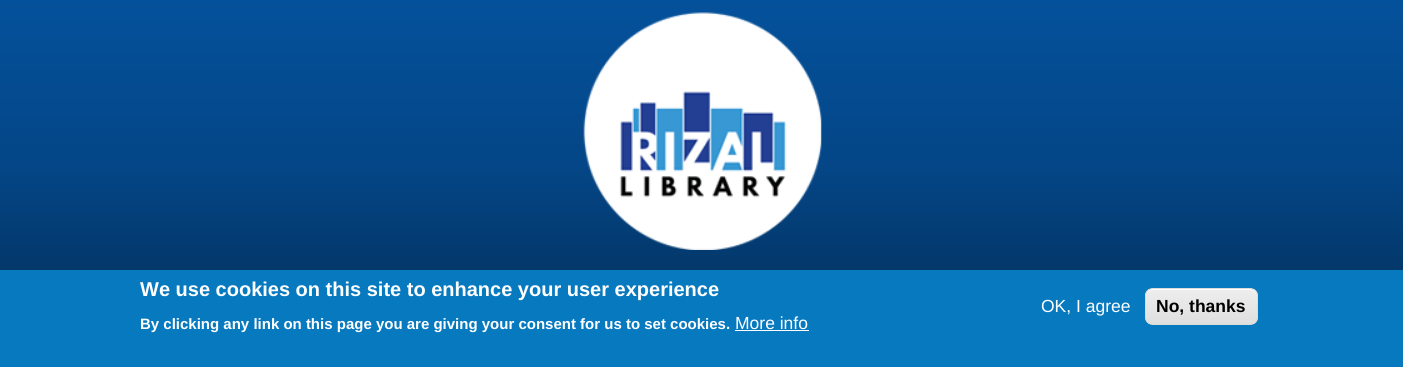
import math
import cairocffi as cairo

surface = cairo.ImageSurface(cairo.FORMAT_RGB24, 1403, 367)
ctx = cairo.Context(surface)
options = cairo.FontOptions()
options.set_hint_metrics(cairo.HINT_METRICS_OFF)
options.set_hint_style(cairo.HINT_STYLE_NONE)
ctx.set_font_options(options)
ctx.set_miter_limit(4)


def rgb(r, g, b):
    ctx.set_source_rgb(r / 255, g / 255, b / 255)


def face(family, size, italic, bold):
    ctx.select_font_face(family, cairo.FONT_SLANT_ITALIC if italic else cairo.FONT_SLANT_NORMAL, cairo.FONT_WEIGHT_BOLD if bold else cairo.FONT_WEIGHT_NORMAL)
    ctx.set_font_size(size)


def label(x, y, s):
    ctx.move_to(x, y)
    ctx.show_text(s)


def rect(x, y, w, h):
    ctx.rectangle(x, y, w, h)
    ctx.fill()


def rrect(x, y, w, h, r):
    ctx.new_sub_path()
    for i, (u, v) in enumerate([(x + w - r, y + h - r), (x + r, y + h - r), (x + r, y + r), (x + w - r, y + r)]):
        ctx.arc(u, v, r, i * math.pi / 2, (i + 1) * math.pi / 2)
    ctx.close_path()


def image(path, x, y, w, h):
    ctx.save()
    ctx.set_source_surface(cairo.ImageSurface.create_from_png(path), x, y)
    ctx.rectangle(x, y, w, h)
    ctx.fill()
    ctx.restore()


rgb(255, 255, 255)
ctx.paint()
gradient = cairo.LinearGradient(702, 0, 702, 275)
gradient.add_color_stop_rgba(0, 0.016, 0.318, 0.608, 1)
gradient.add_color_stop_rgba(0.6, 0.016, 0.275, 0.529, 1)
gradient.add_color_stop_rgba(1, 0.012, 0.216, 0.412, 1)
ctx.set_source(gradient)
rect(0, 0, 1403, 270)
image('image0.png', 583, 12, 239, 238)
rgb(7, 121, 191)
rect(0, 270, 1403, 97)
face('Liberation Sans', 20, 0, 1)
rgb(255, 255, 255)
label(140, 296, 'We use cookies on this site to enhance your user experience')
face('Liberation Sans', 15, 0, 1)
label(140, 329, 'By clicking any link on this page you are giving your consent for us to set cookies.')
face('Liberation Sans', 17.5, 0, 0)
label(735, 329, 'More info')
rect(735, 330, 74, 1)
label(1041, 312, 'OK, I agree')
ctx.save()
rrect(1145, 288, 113, 37, 8)
ctx.clip()
gradient = cairo.LinearGradient(1201, 289, 1201, 324)
gradient.add_color_stop_rgba(0.05, 0.929, 0.929, 0.929, 1)
gradient.add_color_stop_rgba(1, 0.875, 0.875, 0.875, 1)
ctx.set_source(gradient)
rect(1145, 289, 113, 35)
ctx.restore()
ctx.new_path()
ctx.move_to(1152, 290)
ctx.line_to(1250, 290)
ctx.curve_to(1253, 290, 1256, 293, 1256, 296)
ctx.curve_to(1256, 285, 1240, 289, 1234, 289)
ctx.line_to(1168, 289)
ctx.curve_to(1162, 289, 1146, 285, 1146, 296)
ctx.curve_to(1146, 293, 1149, 290, 1152, 290)
ctx.close_path()
ctx.fill()
rrect(1145.5, 288.5, 112, 36, 7.5)
rgb(220, 220, 220)
ctx.set_line_width(1)
ctx.stroke()
face('Liberation Sans', 17.5, 0, 1)
rgb(0, 0, 0)
label(1156, 312, 'No, thanks')
surface.write_to_png('render.png')
